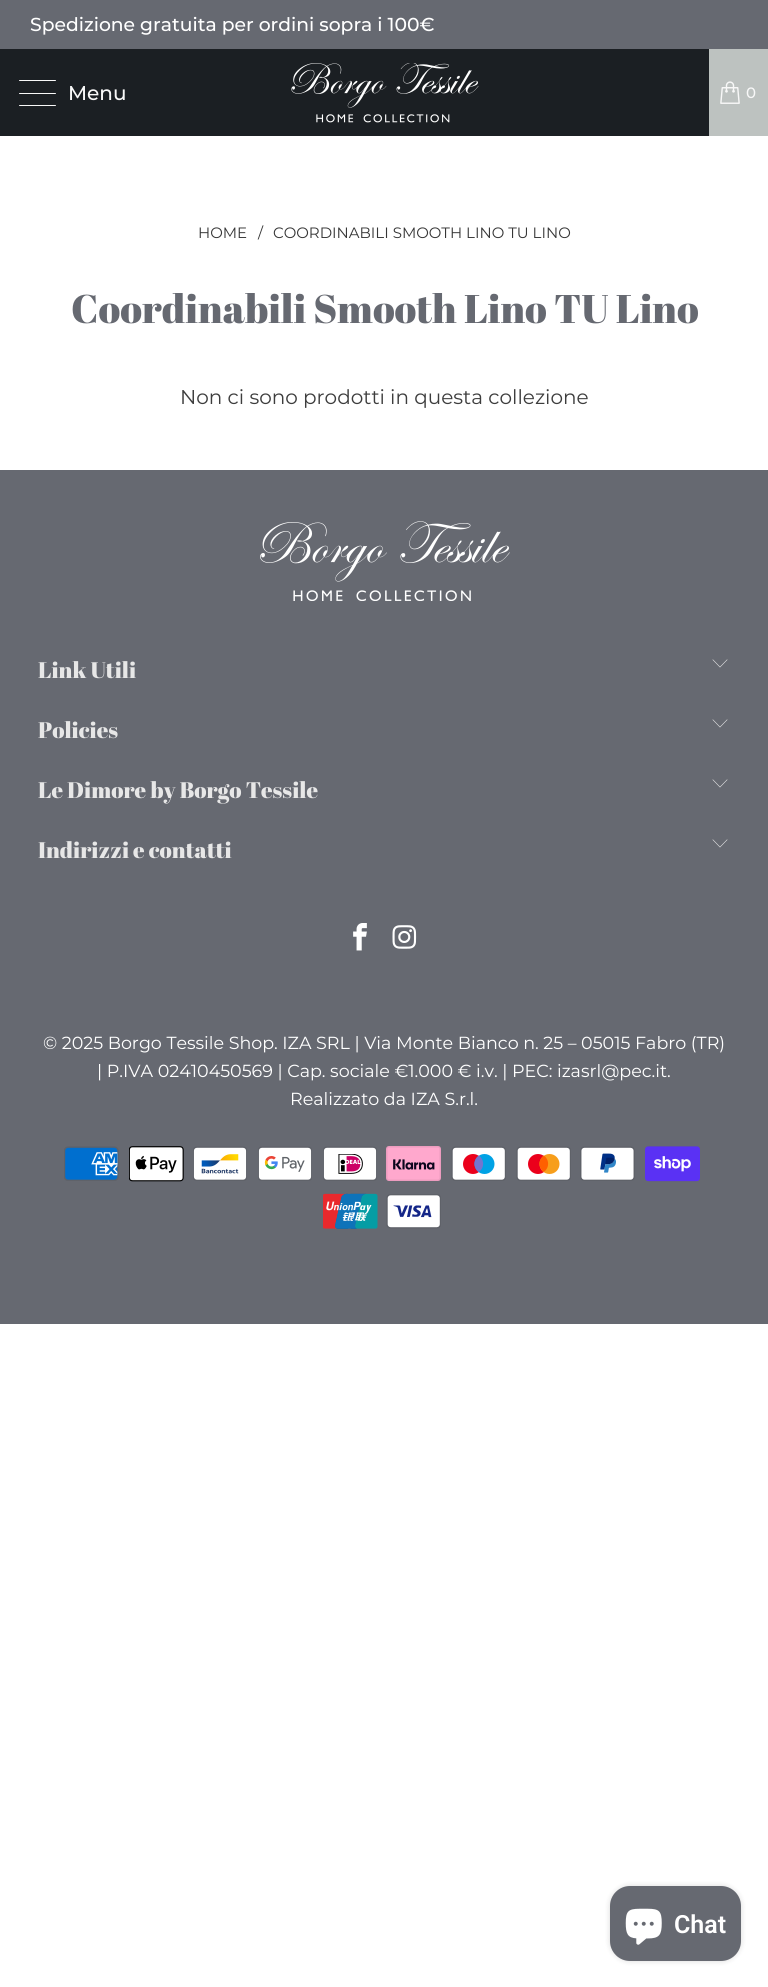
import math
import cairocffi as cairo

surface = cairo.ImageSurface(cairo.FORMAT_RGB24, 768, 1987)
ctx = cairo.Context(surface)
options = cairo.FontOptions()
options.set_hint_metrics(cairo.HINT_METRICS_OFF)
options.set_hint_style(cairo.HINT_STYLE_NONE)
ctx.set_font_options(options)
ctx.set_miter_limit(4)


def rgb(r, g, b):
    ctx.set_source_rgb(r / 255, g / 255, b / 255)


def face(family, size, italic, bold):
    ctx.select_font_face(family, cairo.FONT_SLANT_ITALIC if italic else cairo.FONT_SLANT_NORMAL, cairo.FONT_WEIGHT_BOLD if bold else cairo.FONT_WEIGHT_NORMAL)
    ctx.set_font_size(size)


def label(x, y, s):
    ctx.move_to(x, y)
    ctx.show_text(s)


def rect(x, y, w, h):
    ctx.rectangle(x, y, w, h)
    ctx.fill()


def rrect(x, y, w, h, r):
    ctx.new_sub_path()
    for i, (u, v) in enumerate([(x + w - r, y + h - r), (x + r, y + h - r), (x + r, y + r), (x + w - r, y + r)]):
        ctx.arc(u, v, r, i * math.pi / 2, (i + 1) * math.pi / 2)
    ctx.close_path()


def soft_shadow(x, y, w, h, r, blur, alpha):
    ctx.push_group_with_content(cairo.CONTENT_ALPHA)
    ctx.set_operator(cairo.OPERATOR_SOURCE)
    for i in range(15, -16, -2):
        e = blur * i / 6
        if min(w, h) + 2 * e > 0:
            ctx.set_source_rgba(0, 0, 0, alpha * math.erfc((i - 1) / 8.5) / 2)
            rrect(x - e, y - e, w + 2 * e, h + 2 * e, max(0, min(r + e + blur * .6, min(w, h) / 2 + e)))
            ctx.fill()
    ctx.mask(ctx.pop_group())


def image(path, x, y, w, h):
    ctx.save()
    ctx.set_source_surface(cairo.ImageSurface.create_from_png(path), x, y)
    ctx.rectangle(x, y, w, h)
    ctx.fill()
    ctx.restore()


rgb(255, 255, 255)
ctx.paint()
rgb(102, 105, 113)
rect(0, 0, 768, 49)
face('Montserrat Medium', 18.75, 0, 0)
rgb(255, 255, 255)
label(30, 31, 'Spedizione gratuita per ordini sopra i 100€')
rgb(27, 31, 35)
rect(0, 49, 709, 87)
rgb(248, 248, 248)
rrect(19, 80, 37, 1, 0.5)
ctx.fill()
rrect(19, 93, 37, 1, 0.5)
ctx.fill()
rrect(19, 105, 37, 1, 0.5)
ctx.fill()
face('Montserrat Medium', 20, 0, 0)
label(68, 100, 'Menu')
image('image0.png', 291, 63, 188, 60)
rgb(189, 194, 192)
rect(709, 49, 59, 87)
image('image1.png', 720, 81, 20, 23)
face('Montserrat Medium', 15, 0, 0)
rgb(248, 248, 248)
label(746, 98, '0')
face('Montserrat', 15, 0, 0)
rgb(54, 54, 54)
label(198, 238, 'HOME')
label(258, 238, '/')
label(273, 238, 'COORDINABILI SMOOTH LINO TU LINO')
face('Abril Fatface', 40, 0, 0)
rgb(102, 105, 113)
label(71, 323, 'Coordinabili Smooth Lino TU Lino')
face('Montserrat', 20, 0, 0)
rgb(61, 61, 61)
label(180, 404, 'Non ci sono prodotti in questa collezione')
rgb(102, 105, 113)
rect(0, 470, 768, 854)
image('image2.png', 260, 521, 250, 80)
face('Abril Fatface', 22.5, 0, 0)
rgb(231, 231, 231)
label(38, 678, 'Link Utili')
image('image3.png', 712, 659, 16, 9)
label(38, 738, 'Policies')
image('image3.png', 712, 719, 16, 9)
label(38, 798, 'Le Dimore by Borgo Tessile')
image('image3.png', 712, 779, 16, 9)
label(38, 858, 'Indirizzi e contatti')
image('image3.png', 712, 839, 16, 9)
image('image4.png', 353, 923, 14, 28)
image('image5.png', 392, 925, 25, 24)
face('Montserrat', 17.5, 0, 0)
rgb(255, 255, 255)
label(43, 1049, '© 2025 Borgo Tessile Shop')
label(274, 1049, '. IZA SRL | Via Monte Bianco n. 25 – 05015 Fabro (TR)')
label(97, 1077, '| P.IVA 02410450569 | Cap. sociale €1.000 € i.v. | PEC: izasrl@pec.it.')
label(290, 1105, 'Realizzato da IZA S.r.l.')
image('image6.png', 64, 1146, 55, 35)
image('image7.png', 129, 1146, 55, 36)
image('image8.png', 193, 1146, 54, 35)
image('image9.png', 258, 1146, 54, 35)
image('image10.png', 323, 1146, 54, 35)
image('image11.png', 386, 1146, 55, 35)
image('image12.png', 451, 1146, 55, 35)
image('image13.png', 516, 1146, 55, 35)
image('image14.png', 580, 1146, 55, 35)
image('image15.png', 645, 1146, 55, 36)
image('image16.png', 323, 1193, 55, 36)
image('image17.png', 386, 1194, 55, 35)
rgb(0, 0, 0)
soft_shadow(610, 1886, 131, 75, 20, 3, 0.15)
rgb(102, 105, 113)
rrect(610, 1886, 131, 75, 20)
ctx.fill()
image('image18.png', 625, 1908, 37, 37)
face('Roboto SemiBold', 25, 0, 0)
rgb(255, 255, 255)
label(674, 1933, 'Chat')
surface.write_to_png('render.png')
